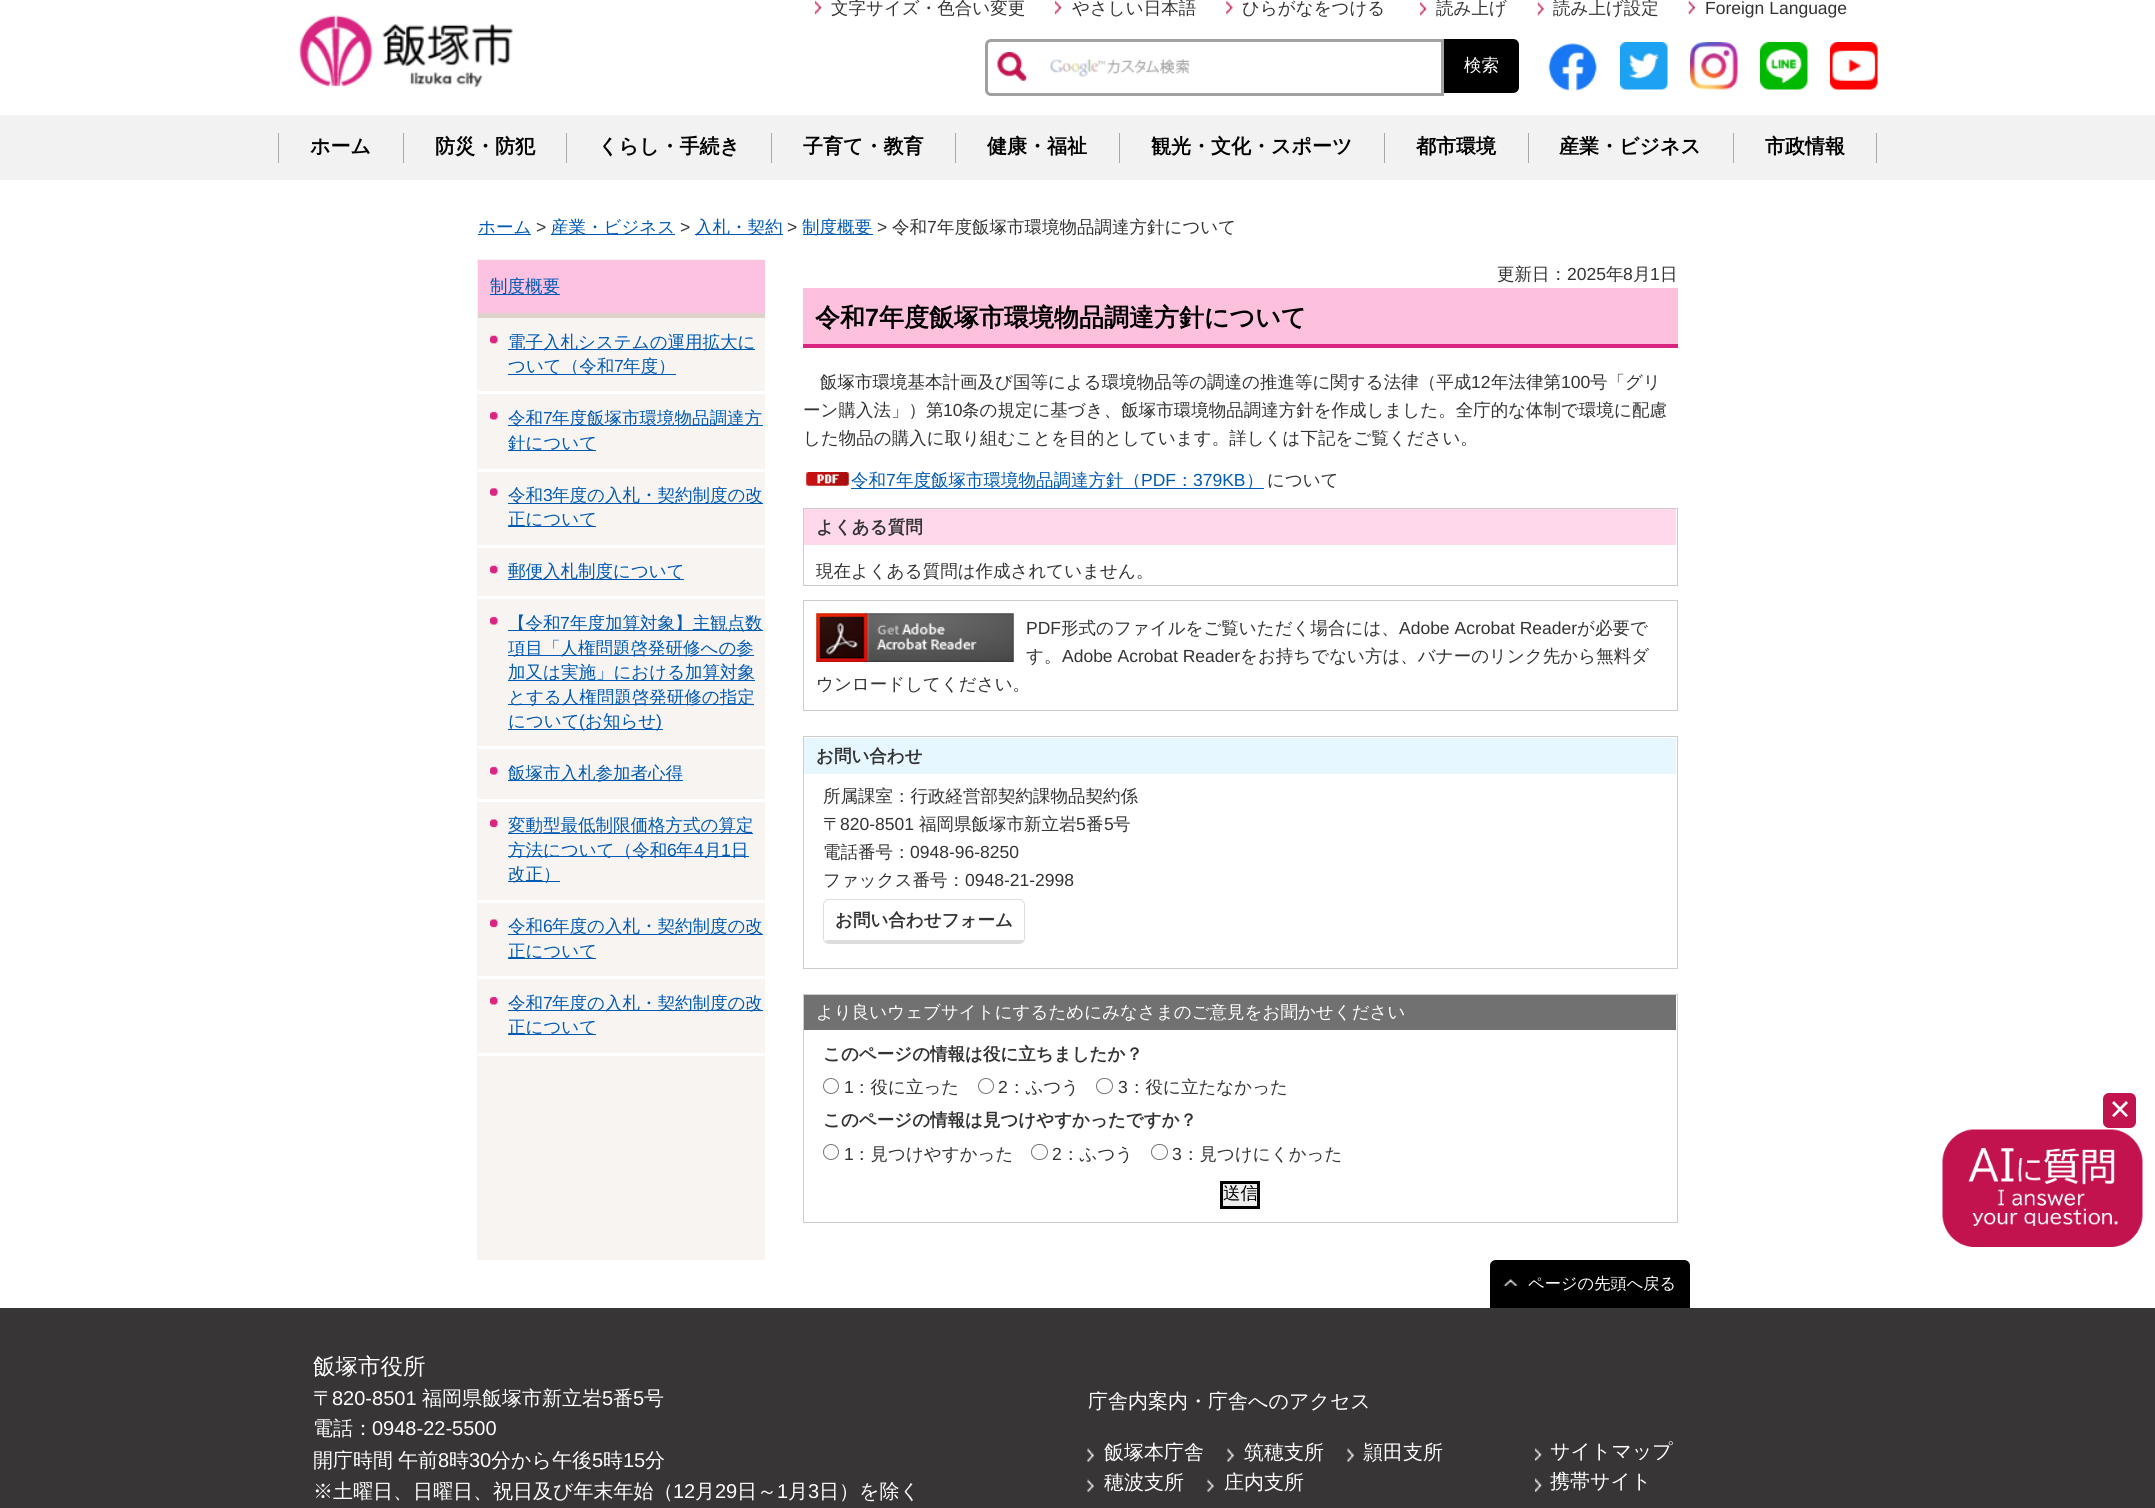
import math
import cairocffi as cairo

surface = cairo.ImageSurface(cairo.FORMAT_RGB24, 2155, 1508)
ctx = cairo.Context(surface)
options = cairo.FontOptions()
options.set_hint_metrics(cairo.HINT_METRICS_OFF)
options.set_hint_style(cairo.HINT_STYLE_NONE)
ctx.set_font_options(options)
ctx.set_miter_limit(4)


def rgb(r, g, b):
    ctx.set_source_rgb(r / 255, g / 255, b / 255)


def face(family, size, italic, bold):
    ctx.select_font_face(family, cairo.FONT_SLANT_ITALIC if italic else cairo.FONT_SLANT_NORMAL, cairo.FONT_WEIGHT_BOLD if bold else cairo.FONT_WEIGHT_NORMAL)
    ctx.set_font_size(size)


def label(x, y, s):
    ctx.move_to(x, y)
    ctx.show_text(s)


def tracked(x, y, s, letter, word):
    ctx.move_to(x, y)
    for ch in s:
        ctx.show_text(ch)
        ctx.rel_move_to(letter + word * (ch == ' '), 0)


def rect(x, y, w, h):
    ctx.rectangle(x, y, w, h)
    ctx.fill()


def rrect(x, y, w, h, r):
    ctx.new_sub_path()
    for i, (u, v) in enumerate([(x + w - r, y + h - r), (x + r, y + h - r), (x + r, y + r), (x + w - r, y + r)]):
        ctx.arc(u, v, r, i * math.pi / 2, (i + 1) * math.pi / 2)
    ctx.close_path()


def image(path, x, y, w, h):
    ctx.save()
    ctx.set_source_surface(cairo.ImageSurface.create_from_png(path), x, y)
    ctx.rectangle(x, y, w, h)
    ctx.fill()
    ctx.restore()


rgb(255, 255, 255)
ctx.paint()
image('image0.png', 290, 10, 223, 78)
image('image1.png', 815, 0, 7, 15)
face('WenQuanYi Zen Hei Medium', 17.5, 0, 0)
rgb(51, 51, 51)
label(831, 14, '文字サイズ・色合い変更')
image('image1.png', 1055, 0, 7, 15)
label(1072, 14, 'やさしい日本語')
image('image2.png', 1226, 0, 7, 15)
label(1242, 14, 'ひらがなをつける')
image('image3.png', 1420, 2, 7, 14)
label(1436, 14, '読み上げ')
image('image4.png', 1537, 2, 7, 14)
label(1553, 14, '読み上げ設定')
image('image5.png', 1688, 0, 7, 15)
face('Liberation Sans', 17.5, 0, 0)
label(1705, 14, 'Foreign Language')
image('image7.png', 1050, 59, 140, 18)
ctx.new_path()
ctx.move_to(991, 40.5)
ctx.line_to(1442.5, 40.5)
ctx.line_to(1442.5, 94.5)
ctx.line_to(991, 94.5)
ctx.curve_to(988.5, 94.5, 986.5, 92.5, 986.5, 90)
ctx.line_to(986.5, 45)
ctx.curve_to(986.5, 42.5, 988.5, 40.5, 991, 40.5)
ctx.close_path()
rgb(161, 161, 161)
ctx.set_line_width(3)
ctx.stroke()
image('image6.png', 997, 52, 30, 29)
rgb(0, 0, 0)
ctx.new_path()
ctx.move_to(1444, 39)
ctx.line_to(1513, 39)
ctx.curve_to(1516.5, 39, 1519, 41.5, 1519, 45)
ctx.line_to(1519, 87)
ctx.curve_to(1519, 90.5, 1516.5, 93, 1513, 93)
ctx.line_to(1444, 93)
ctx.close_path()
ctx.fill()
face('WenQuanYi Zen Hei Medium', 17.5, 0, 0)
rgb(255, 255, 255)
label(1464, 71, '検索')
image('image8.png', 1548, 43, 49, 48)
image('image9.png', 1620, 42, 48, 48)
image('image10.png', 1690, 42, 48, 48)
image('image11.png', 1760, 42, 48, 48)
image('image12.png', 1830, 42, 48, 48)
rgb(242, 242, 242)
rect(0, 115, 2155, 65)
rgb(170, 170, 170)
rect(1876, 133, 1, 30)
rect(278, 133, 1, 30)
face('WenQuanYi Zen Hei', 20, 0, 1)
rgb(0, 0, 0)
label(310, 153, 'ホーム')
rgb(170, 170, 170)
rect(403, 133, 1, 30)
rgb(0, 0, 0)
label(435, 153, '防災・防犯')
rgb(170, 170, 170)
rect(566, 133, 1, 30)
rgb(0, 0, 0)
label(598, 153, 'くらし・手続き')
rgb(170, 170, 170)
rect(771, 133, 1, 30)
rgb(0, 0, 0)
label(803, 153, '子育て・教育')
rgb(170, 170, 170)
rect(955, 133, 1, 30)
rgb(0, 0, 0)
label(987, 153, '健康・福祉')
rgb(170, 170, 170)
rect(1119, 133, 1, 30)
rgb(0, 0, 0)
label(1151, 153, '観光・文化・スポーツ')
rgb(170, 170, 170)
rect(1384, 133, 1, 30)
rgb(0, 0, 0)
label(1416, 153, '都市環境')
rgb(170, 170, 170)
rect(1528, 133, 1, 30)
rgb(0, 0, 0)
label(1559, 153, '産業・ビジネス')
rgb(170, 170, 170)
rect(1733, 133, 1, 30)
rgb(0, 0, 0)
label(1765, 153, '市政情報')
rgb(0, 89, 178)
rect(478, 234, 53, 1)
face('WenQuanYi Zen Hei Medium', 17.5, 0, 0)
label(478, 233, 'ホーム')
face('Liberation Sans', 17.5, 0, 0)
rgb(51, 51, 51)
label(536, 233, '>')
rgb(0, 89, 178)
rect(551, 234, 124, 1)
face('WenQuanYi Zen Hei Medium', 17.5, 0, 0)
label(551, 233, '産業・ビジネス')
face('Liberation Sans', 17.5, 0, 0)
rgb(51, 51, 51)
label(680, 233, '>')
rgb(0, 89, 178)
rect(695, 234, 88, 1)
face('WenQuanYi Zen Hei Medium', 17.5, 0, 0)
label(695, 233, '入札・契約')
face('Liberation Sans', 17.5, 0, 0)
rgb(51, 51, 51)
label(787, 233, '>')
rgb(0, 89, 178)
rect(803, 234, 70, 1)
face('WenQuanYi Zen Hei Medium', 17.5, 0, 0)
label(802, 233, '制度概要')
face('Liberation Sans', 17.5, 0, 0)
rgb(51, 51, 51)
label(877, 233, '>')
face('WenQuanYi Zen Hei Medium', 17.5, 0, 0)
label(892, 233, '令和')
face('Liberation Sans', 17.5, 0, 0)
label(927, 233, '7')
face('WenQuanYi Zen Hei Medium', 17.5, 0, 0)
label(937, 233, '年度飯塚市環境物品調達方針について')
rgb(247, 244, 242)
rect(477, 259, 288, 1001)
rgb(253, 193, 225)
rect(478, 260, 287, 53)
rgb(222, 210, 203)
rect(478, 313, 287, 5)
rgb(0, 89, 178)
rect(490, 294, 70, 1)
label(490, 292, '制度概要')
image('image13.png', 490, 335, 8, 9)
rgb(255, 255, 255)
rect(478, 391, 287, 3)
rgb(0, 89, 178)
rect(508, 349, 247, 1)
label(508, 348, '電子入札システムの運用拡大に')
rect(508, 374, 168, 1)
label(508, 372, 'ついて（令和')
face('Liberation Sans', 17.5, 0, 0)
label(614, 372, '7')
face('WenQuanYi Zen Hei Medium', 17.5, 0, 0)
label(623, 372, '年度）')
image('image14.png', 490, 411, 8, 9)
rgb(255, 255, 255)
rect(478, 469, 287, 3)
rgb(0, 89, 178)
rect(508, 425, 255, 1)
label(508, 424, '令和')
face('Liberation Sans', 17.5, 0, 0)
label(543, 424, '7')
face('WenQuanYi Zen Hei Medium', 17.5, 0, 0)
label(552, 424, '年度飯塚市環境物品調達方')
rect(508, 450, 88, 1)
label(508, 449, '針について')
image('image15.png', 490, 488, 8, 8)
rgb(255, 255, 255)
rect(478, 545, 287, 3)
rgb(0, 89, 178)
rect(508, 503, 255, 1)
label(508, 501, '令和')
face('Liberation Sans', 17.5, 0, 0)
label(543, 501, '3')
face('WenQuanYi Zen Hei Medium', 17.5, 0, 0)
label(552, 501, '年度の入札・契約制度の改')
rect(508, 526, 88, 1)
label(508, 525, '正について')
image('image13.png', 490, 565, 8, 9)
rgb(255, 255, 255)
rect(478, 596, 287, 3)
rgb(0, 89, 178)
rect(508, 579, 176, 1)
label(508, 577, '郵便入札制度について')
image('image14.png', 490, 616, 8, 9)
rgb(255, 255, 255)
rect(478, 746, 287, 3)
rgb(0, 89, 178)
rect(508, 630, 255, 1)
label(508, 629, '【令和')
face('Liberation Sans', 17.5, 0, 0)
label(560, 629, '7')
face('WenQuanYi Zen Hei Medium', 17.5, 0, 0)
label(570, 629, '年度加算対象】主観点数')
rect(508, 655, 246, 1)
label(508, 654, '項目「人権問題啓発研修への参')
rect(508, 680, 247, 1)
label(508, 678, '加又は実施」における加算対象')
rect(508, 704, 246, 1)
label(508, 703, 'とする人権問題啓発研修の指定')
label(508, 727, 'について')
rect(508, 729, 155, 1)
face('Liberation Sans', 17.5, 0, 0)
label(579, 727, '(')
face('WenQuanYi Zen Hei Medium', 17.5, 0, 0)
label(585, 727, 'お知らせ')
face('Liberation Sans', 17.5, 0, 0)
label(656, 727, ')')
image('image16.png', 490, 766, 8, 9)
rgb(255, 255, 255)
rect(478, 799, 287, 3)
rgb(0, 89, 178)
rect(508, 780, 175, 1)
face('WenQuanYi Zen Hei Medium', 17.5, 0, 0)
label(508, 779, '飯塚市入札参加者心得')
image('image17.png', 490, 819, 8, 9)
rgb(255, 255, 255)
rect(478, 900, 287, 3)
rgb(0, 89, 178)
rect(508, 833, 245, 1)
label(508, 831, '変動型最低制限価格方式の算定')
rect(508, 856, 241, 1)
label(508, 856, '方法について（令和')
face('Liberation Sans', 17.5, 0, 0)
label(667, 856, '6')
face('WenQuanYi Zen Hei Medium', 17.5, 0, 0)
label(676, 856, '年')
face('Liberation Sans', 17.5, 0, 0)
label(694, 856, '4')
face('WenQuanYi Zen Hei Medium', 17.5, 0, 0)
label(704, 856, '月')
face('Liberation Sans', 17.5, 0, 0)
label(721, 856, '1')
face('WenQuanYi Zen Hei Medium', 17.5, 0, 0)
label(731, 856, '日')
rect(508, 881, 52, 1)
label(508, 880, '改正）')
image('image17.png', 490, 919, 8, 9)
rgb(255, 255, 255)
rect(478, 976, 287, 3)
rgb(0, 89, 178)
rect(508, 934, 255, 1)
label(508, 932, '令和')
face('Liberation Sans', 17.5, 0, 0)
label(543, 932, '6')
face('WenQuanYi Zen Hei Medium', 17.5, 0, 0)
label(552, 932, '年度の入札・契約制度の改')
rect(508, 958, 88, 1)
label(508, 957, '正について')
image('image14.png', 490, 996, 8, 9)
rgb(255, 255, 255)
rect(478, 1053, 287, 3)
rgb(0, 89, 178)
rect(508, 1010, 255, 1)
label(508, 1009, '令和')
face('Liberation Sans', 17.5, 0, 0)
label(543, 1009, '7')
face('WenQuanYi Zen Hei Medium', 17.5, 0, 0)
label(552, 1009, '年度の入札・契約制度の改')
rect(508, 1034, 88, 1)
label(508, 1033, '正について')
rgb(51, 51, 51)
label(1497, 280, '更新日：')
face('Liberation Sans', 17.5, 0, 0)
label(1567, 280, '2025')
face('WenQuanYi Zen Hei Medium', 17.5, 0, 0)
label(1606, 280, '年')
face('Liberation Sans', 17.5, 0, 0)
label(1623, 280, '8')
face('WenQuanYi Zen Hei Medium', 17.5, 0, 0)
label(1633, 280, '月')
face('Liberation Sans', 17.5, 0, 0)
label(1650, 280, '1')
face('WenQuanYi Zen Hei Medium', 17.5, 0, 0)
label(1660, 280, '日')
rgb(253, 193, 222)
rect(803, 288, 875, 56)
rgb(217, 37, 128)
rect(803, 344, 875, 4)
face('WenQuanYi Zen Hei', 25, 0, 1)
rgb(0, 0, 0)
label(815, 326, '令和')
face('Liberation Sans', 25, 0, 1)
label(865, 326, '7')
face('WenQuanYi Zen Hei', 25, 0, 1)
label(879, 326, '年度飯塚市環境物品調達方針について')
face('WenQuanYi Zen Hei Medium', 17.5, 0, 0)
rgb(51, 51, 51)
label(820, 388, '飯塚市環境基本計画及び国等による環境物品等の調達の推進等に関する法律（平成')
face('Liberation Sans', 17.5, 0, 0)
label(1471, 388, '12')
face('WenQuanYi Zen Hei Medium', 17.5, 0, 0)
label(1491, 388, '年法律第')
face('Liberation Sans', 17.5, 0, 0)
label(1561, 388, '100')
face('WenQuanYi Zen Hei Medium', 17.5, 0, 0)
label(1590, 388, '号「グリ')
label(803, 416, 'ーン購入法」）第')
face('Liberation Sans', 17.5, 0, 0)
label(943, 416, '10')
face('WenQuanYi Zen Hei Medium', 17.5, 0, 0)
label(962, 416, '条の規定に基づき、飯塚市環境物品調達方針を作成しました。全庁的な体制で環境に配慮')
label(803, 444, 'した物品の購入に取り組むことを目的としています。詳しくは下記をご覧ください。')
image('image18.png', 806, 472, 43, 14)
rgb(0, 89, 178)
rect(851, 488, 413, 1)
label(851, 486, '令和')
face('Liberation Sans', 17.5, 0, 0)
label(886, 486, '7')
face('WenQuanYi Zen Hei Medium', 17.5, 0, 0)
label(896, 486, '年度飯塚市環境物品調達方針（')
face('Liberation Sans', 17.5, 0, 0)
label(1141, 486, 'PDF')
face('WenQuanYi Zen Hei Medium', 17.5, 0, 0)
label(1176, 486, '：')
face('Liberation Sans', 17.5, 0, 0)
label(1193, 486, '379KB')
face('WenQuanYi Zen Hei Medium', 17.5, 0, 0)
label(1246, 486, '）')
rgb(51, 51, 51)
label(1267, 486, 'について')
ctx.rectangle(803.5, 508.5, 874, 77)
rgb(204, 204, 204)
ctx.set_line_width(1)
ctx.stroke()
rgb(255, 216, 235)
rect(804, 509, 872, 36)
face('WenQuanYi Zen Hei', 17.5, 0, 1)
rgb(51, 51, 51)
label(816, 533, 'よくある質問')
face('WenQuanYi Zen Hei Medium', 17.5, 0, 0)
label(816, 577, '現在よくある質問は作成されていません。')
ctx.rectangle(803.5, 600.5, 874, 110)
rgb(204, 204, 204)
ctx.stroke()
image('image19.png', 816, 613, 198, 49)
face('Liberation Sans', 17.5, 0, 0)
rgb(51, 51, 51)
label(1026, 634, 'PDF')
face('WenQuanYi Zen Hei Medium', 17.5, 0, 0)
label(1061, 634, '形式のファイルをご覧いただく場合には、')
face('Liberation Sans', 17.5, 0, 0)
label(1399, 634, 'Adobe Acrobat Reader')
face('WenQuanYi Zen Hei Medium', 17.5, 0, 0)
label(1577, 634, 'が必要で')
label(1026, 662, 'す。')
face('Liberation Sans', 17.5, 0, 0)
label(1062, 662, 'Adobe Acrobat Reader')
face('WenQuanYi Zen Hei Medium', 17.5, 0, 0)
label(1240, 662, 'をお持ちでない方は、バナーのリンク先から無料ダ')
label(816, 690, 'ウンロードしてください。')
ctx.rectangle(803.5, 736.5, 874, 232)
rgb(204, 204, 204)
ctx.stroke()
rgb(230, 247, 255)
rect(804, 738, 872, 36)
face('WenQuanYi Zen Hei', 17.5, 0, 1)
rgb(51, 51, 51)
label(816, 762, 'お問い合わせ')
face('WenQuanYi Zen Hei Medium', 17.5, 0, 0)
label(823, 802, '所属課室：行政経営部契約課物品契約係')
label(823, 830, '〒')
face('Liberation Sans', 17.5, 0, 0)
label(840, 830, '820-8501')
face('WenQuanYi Zen Hei Medium', 17.5, 0, 0)
label(919, 830, '福岡県飯塚市新立岩')
face('Liberation Sans', 17.5, 0, 0)
label(1076, 830, '5')
face('WenQuanYi Zen Hei Medium', 17.5, 0, 0)
label(1086, 830, '番')
face('Liberation Sans', 17.5, 0, 0)
label(1104, 830, '5')
face('WenQuanYi Zen Hei Medium', 17.5, 0, 0)
label(1113, 830, '号')
label(823, 858, '電話番号：')
face('Liberation Sans', 17.5, 0, 0)
label(910, 858, '0948-96-8250')
face('WenQuanYi Zen Hei Medium', 17.5, 0, 0)
label(823, 886, 'ファックス番号：')
face('Liberation Sans', 17.5, 0, 0)
label(965, 886, '0948-21-2998')
rrect(823.5, 899.5, 201, 44, 5.5)
rgb(221, 221, 221)
ctx.stroke()
rect(826, 940, 197, 3)
rgb(255, 255, 255)
rrect(824, 900, 200, 40, 6)
ctx.fill()
face('WenQuanYi Zen Hei', 17.5, 0, 1)
rgb(51, 51, 51)
label(835, 926, 'お問い合わせフォーム')
ctx.rectangle(803.5, 994.5, 874, 228)
rgb(204, 204, 204)
ctx.stroke()
rgb(114, 113, 113)
rect(804, 995, 872, 35)
face('WenQuanYi Zen Hei Medium', 17.5, 0, 0)
rgb(255, 255, 255)
label(816, 1018, 'より良いウェブサイトにするためにみなさまのご意見をお聞かせください')
face('WenQuanYi Zen Hei', 17.5, 0, 1)
rgb(51, 51, 51)
label(823, 1060, 'このページの情報は役に立ちましたか？')
ctx.new_path()
ctx.arc(831, 1086, 7.5, 0, 2 * math.pi)
rgb(118, 118, 118)
ctx.stroke()
face('Liberation Sans', 17.5, 0, 0)
rgb(51, 51, 51)
label(844, 1093, '1')
face('WenQuanYi Zen Hei Medium', 17.5, 0, 0)
label(853, 1093, '：役に立った')
ctx.new_path()
ctx.arc(986, 1086, 7.5, 0, 2 * math.pi)
rgb(118, 118, 118)
ctx.stroke()
face('Liberation Sans', 17.5, 0, 0)
rgb(51, 51, 51)
label(998, 1093, '2')
face('WenQuanYi Zen Hei Medium', 17.5, 0, 0)
label(1008, 1093, '：ふつう')
rrect(1096.5, 1078.5, 16, 15, 7.5)
rgb(118, 118, 118)
ctx.stroke()
face('Liberation Sans', 17.5, 0, 0)
rgb(51, 51, 51)
label(1118, 1093, '3')
face('WenQuanYi Zen Hei Medium', 17.5, 0, 0)
label(1128, 1093, '：役に立たなかった')
face('WenQuanYi Zen Hei', 17.5, 0, 1)
label(823, 1126, 'このページの情報は見つけやすかったですか？')
ctx.new_path()
ctx.arc(831, 1152, 7.5, 0, 2 * math.pi)
rgb(118, 118, 118)
ctx.stroke()
face('Liberation Sans', 17.5, 0, 0)
rgb(51, 51, 51)
label(844, 1160, '1')
face('WenQuanYi Zen Hei Medium', 17.5, 0, 0)
label(853, 1160, '：見つけやすかった')
rrect(1031.5, 1144.5, 16, 15, 7.5)
rgb(118, 118, 118)
ctx.stroke()
face('Liberation Sans', 17.5, 0, 0)
rgb(51, 51, 51)
label(1052, 1160, '2')
face('WenQuanYi Zen Hei Medium', 17.5, 0, 0)
label(1062, 1160, '：ふつう')
rrect(1151.5, 1144.5, 16, 15, 7.5)
rgb(118, 118, 118)
ctx.stroke()
face('Liberation Sans', 17.5, 0, 0)
rgb(51, 51, 51)
label(1172, 1160, '3')
face('WenQuanYi Zen Hei Medium', 17.5, 0, 0)
label(1182, 1160, '：見つけにくかった')
rgb(239, 239, 239)
ctx.rectangle(1221.5, 1182.5, 37, 25)
ctx.fill_preserve()
rgb(0, 0, 0)
ctx.set_line_width(3)
ctx.stroke()
label(1223, 1199, '送信')
ctx.new_path()
ctx.move_to(1496, 1260)
ctx.line_to(1684, 1260)
ctx.curve_to(1687.5, 1260, 1690, 1262.5, 1690, 1266)
ctx.line_to(1690, 1308)
ctx.line_to(1490, 1308)
ctx.line_to(1490, 1266)
ctx.curve_to(1490, 1262.5, 1492.5, 1260, 1496, 1260)
ctx.close_path()
ctx.fill()
image('image20.png', 1503, 1279, 15, 7)
face('WenQuanYi Zen Hei Medium', 16.25, 0, 0)
rgb(255, 255, 255)
label(1528, 1289, 'ページの先頭へ戻る')
rgb(55, 53, 53)
rect(0, 1308, 2155, 200)
face('WenQuanYi Zen Hei Medium', 22.5, 0, 0)
rgb(255, 255, 255)
label(313, 1374, '飯塚市役所')
face('WenQuanYi Zen Hei Medium', 20, 0, 0)
label(313, 1405, '〒')
face('Liberation Sans', 20, 0, 0)
label(332, 1405, '820-8501')
face('WenQuanYi Zen Hei Medium', 20, 0, 0)
label(422, 1405, '福岡県飯塚市新立岩')
face('Liberation Sans', 20, 0, 0)
label(602, 1405, '5')
face('WenQuanYi Zen Hei Medium', 20, 0, 0)
label(613, 1405, '番')
face('Liberation Sans', 20, 0, 0)
label(633, 1405, '5')
face('WenQuanYi Zen Hei Medium', 20, 0, 0)
label(644, 1405, '号')
label(313, 1435, '電話：')
face('Liberation Sans', 20, 0, 0)
label(372, 1435, '0948-22-5500')
face('WenQuanYi Zen Hei Medium', 20, 0, 0)
tracked(313, 1467, '開庁時間 午前', 0, -1)
face('Liberation Sans', 20, 0, 0)
label(438, 1467, '8')
face('WenQuanYi Zen Hei Medium', 20, 0, 0)
label(449, 1467, '時')
face('Liberation Sans', 20, 0, 0)
label(469, 1467, '30')
face('WenQuanYi Zen Hei Medium', 20, 0, 0)
label(491, 1467, '分から午後')
face('Liberation Sans', 20, 0, 0)
label(592, 1467, '5')
face('WenQuanYi Zen Hei Medium', 20, 0, 0)
label(603, 1467, '時')
face('Liberation Sans', 20, 0, 0)
label(623, 1467, '15')
face('WenQuanYi Zen Hei Medium', 20, 0, 0)
label(645, 1467, '分')
label(313, 1498, '※土曜日、日曜日、祝日及び年末年始（')
face('Liberation Sans', 20, 0, 0)
label(673, 1498, '12')
face('WenQuanYi Zen Hei Medium', 20, 0, 0)
label(695, 1498, '月')
face('Liberation Sans', 20, 0, 0)
label(715, 1498, '29')
face('WenQuanYi Zen Hei Medium', 20, 0, 0)
label(737, 1498, '日～')
face('Liberation Sans', 20, 0, 0)
label(777, 1498, '1')
face('WenQuanYi Zen Hei Medium', 20, 0, 0)
label(788, 1498, '月')
face('Liberation Sans', 20, 0, 0)
label(808, 1498, '3')
face('WenQuanYi Zen Hei Medium', 20, 0, 0)
label(819, 1498, '日）を除く')
label(1088, 1408, '庁舎内案内・庁舎へのアクセス')
image('image21.png', 1087, 1448, 7, 14)
label(1104, 1459, '飯塚本庁舎')
image('image22.png', 1227, 1448, 7, 14)
label(1244, 1459, '筑穂支所')
image('image21.png', 1347, 1448, 7, 14)
label(1363, 1459, '頴田支所')
image('image23.png', 1087, 1479, 7, 13)
label(1104, 1489, '穂波支所')
image('image24.png', 1207, 1479, 7, 13)
label(1224, 1489, '庄内支所')
image('image25.png', 1535, 1448, 7, 13)
label(1550, 1458, 'サイトマップ')
image('image26.png', 1535, 1478, 7, 14)
label(1550, 1488, '携帯サイト')
rgb(194, 19, 78)
rrect(2103, 1093, 33, 35, 6)
ctx.fill()
rgb(255, 255, 255)
ctx.new_path()
ctx.move_to(2114, 1101)
ctx.line_to(2128, 1115.5)
ctx.line_to(2126, 1117)
ctx.line_to(2112, 1103)
ctx.close_path()
ctx.fill()
ctx.new_path()
ctx.move_to(2112, 1115.5)
ctx.line_to(2126, 1101)
ctx.line_to(2128, 1103)
ctx.line_to(2114, 1117)
ctx.close_path()
ctx.fill()
image('image27.png', 1942, 1129, 201, 118)
surface.write_to_png('render.png')
